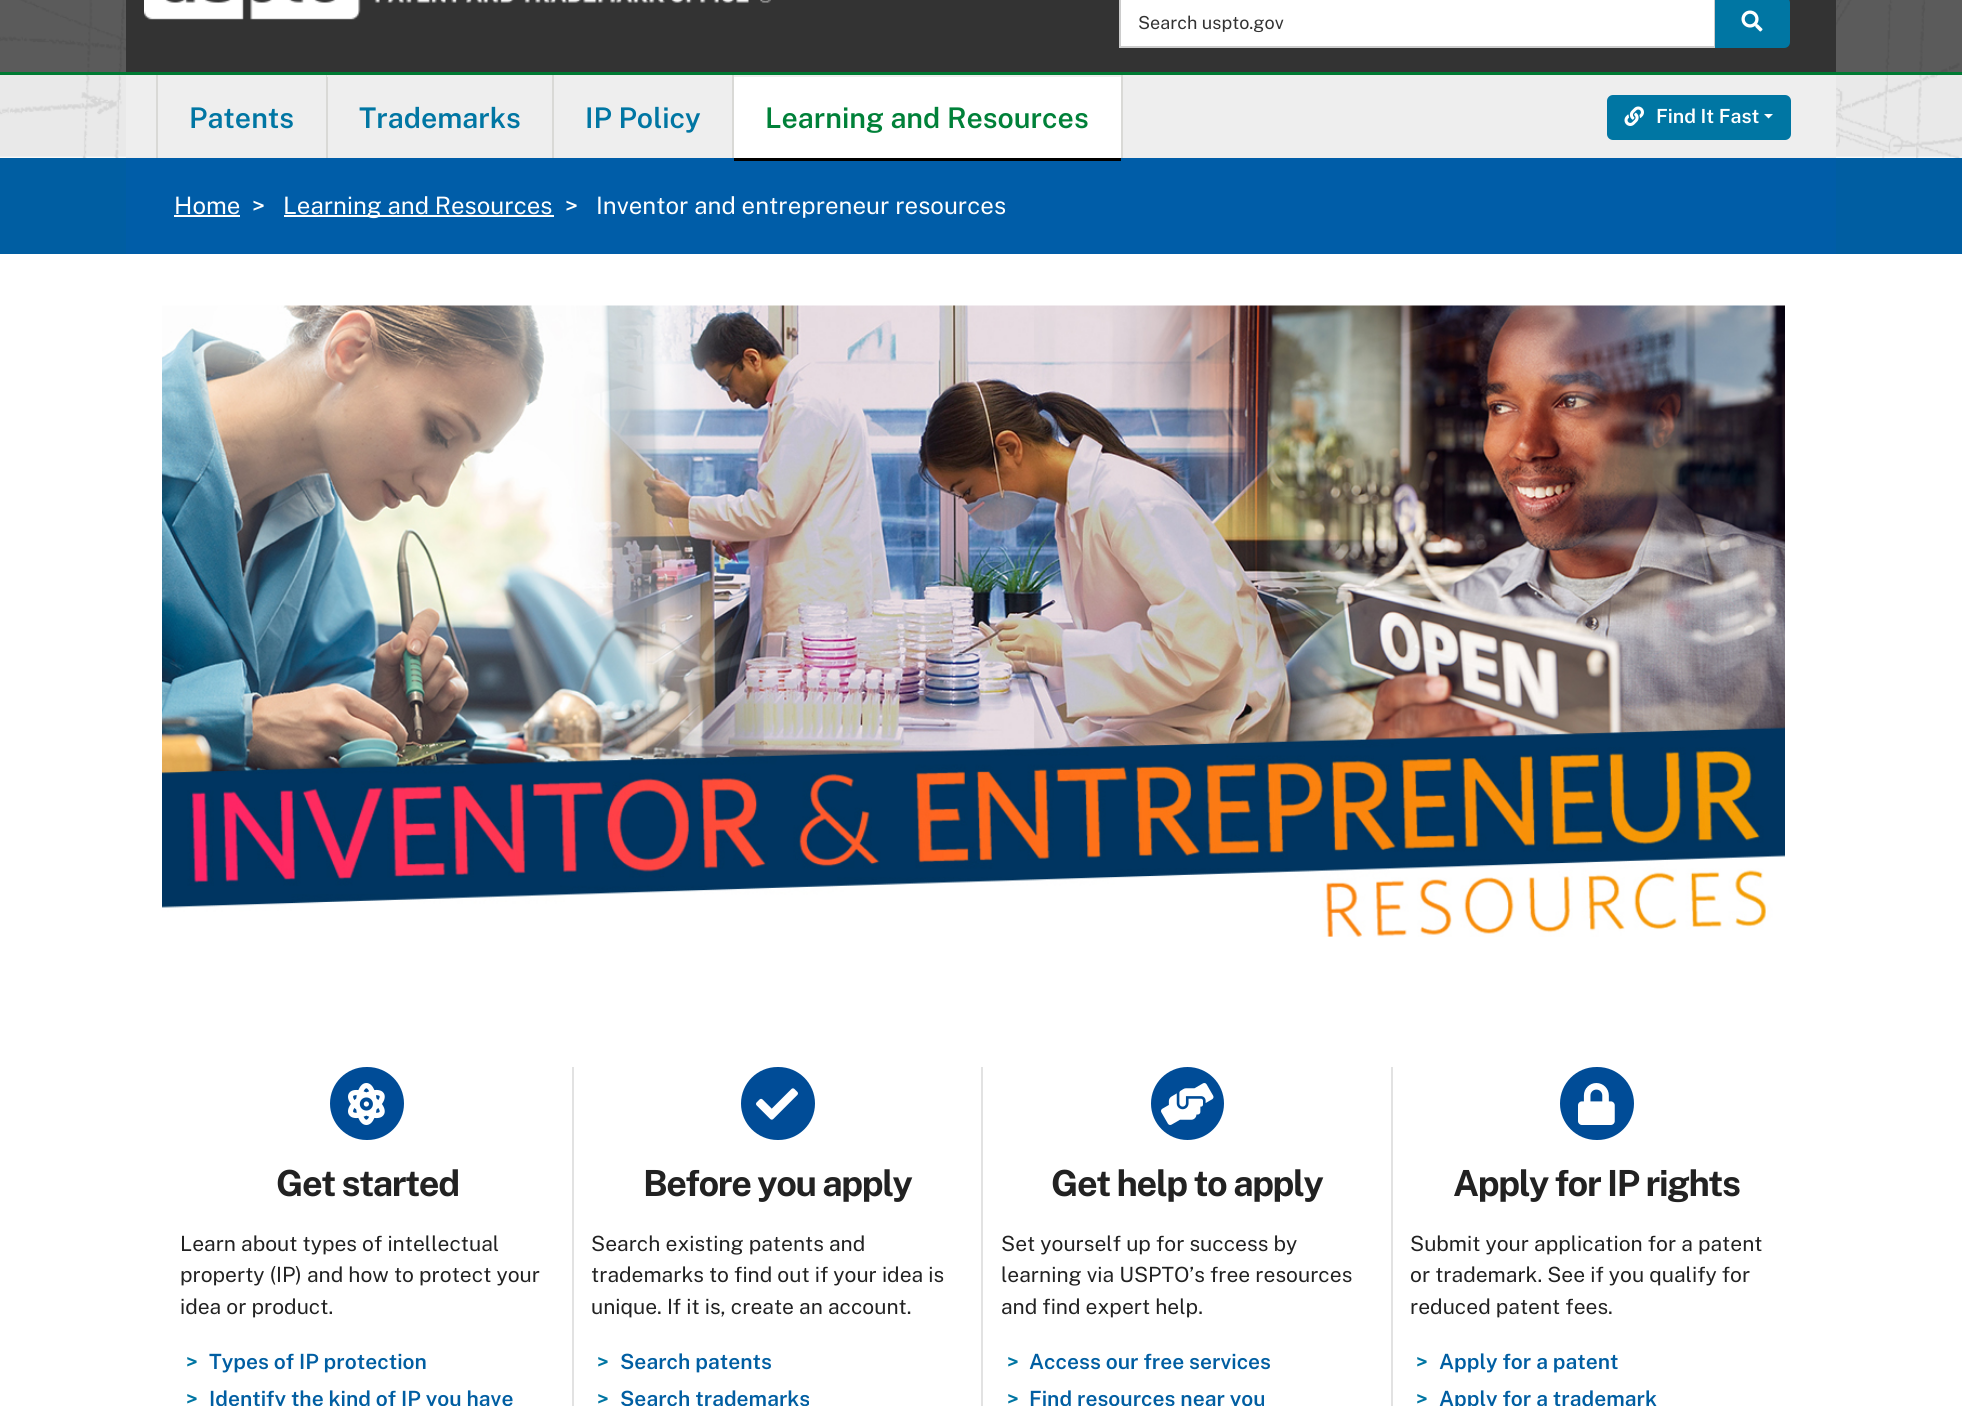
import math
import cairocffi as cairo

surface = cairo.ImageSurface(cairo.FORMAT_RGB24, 1962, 1406)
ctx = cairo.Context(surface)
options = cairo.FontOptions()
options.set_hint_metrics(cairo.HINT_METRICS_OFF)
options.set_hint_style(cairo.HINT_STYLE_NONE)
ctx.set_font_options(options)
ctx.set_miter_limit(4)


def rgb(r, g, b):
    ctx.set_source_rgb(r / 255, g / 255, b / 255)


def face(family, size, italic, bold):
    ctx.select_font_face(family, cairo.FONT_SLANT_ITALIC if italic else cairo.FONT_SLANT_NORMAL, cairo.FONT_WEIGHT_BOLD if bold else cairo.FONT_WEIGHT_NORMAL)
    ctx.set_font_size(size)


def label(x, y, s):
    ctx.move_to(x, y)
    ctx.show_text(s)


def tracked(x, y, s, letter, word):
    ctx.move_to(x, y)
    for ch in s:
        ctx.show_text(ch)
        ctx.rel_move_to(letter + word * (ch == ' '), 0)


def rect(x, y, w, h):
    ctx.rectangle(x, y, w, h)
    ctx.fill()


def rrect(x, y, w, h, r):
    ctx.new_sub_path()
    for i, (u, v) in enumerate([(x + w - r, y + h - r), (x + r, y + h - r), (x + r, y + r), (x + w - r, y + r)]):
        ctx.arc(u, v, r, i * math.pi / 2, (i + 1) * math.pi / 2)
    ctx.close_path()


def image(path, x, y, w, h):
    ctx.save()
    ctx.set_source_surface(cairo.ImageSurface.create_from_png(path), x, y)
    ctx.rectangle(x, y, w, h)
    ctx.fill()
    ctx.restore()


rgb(255, 255, 255)
ctx.paint()
image('image0.png', 0, 0, 1962, 158)
ctx.set_source_rgba(0.196, 0.196, 0.196, 0.8)
rect(0, 0, 1962, 72)
rgb(51, 51, 51)
rect(126, 0, 1710, 72)
image('image1.png', 144, 0, 627, 20)
rgb(255, 255, 255)
ctx.rectangle(1120, -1, 595, 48)
ctx.fill_preserve()
rgb(204, 204, 204)
ctx.stroke()
face('Public Sans', 18, 0, 0)
rgb(51, 51, 51)
label(1138, 29, 'Search uspto.gov')
rgb(0, 118, 163)
ctx.new_path()
ctx.move_to(1715, -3)
ctx.line_to(1784, -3)
ctx.curve_to(1787.5, -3, 1790, -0.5, 1790, 3)
ctx.line_to(1790, 42)
ctx.curve_to(1790, 45.5, 1787.5, 48, 1784, 48)
ctx.line_to(1715, 48)
ctx.close_path()
ctx.fill()
image('image2.png', 1741, 10, 22, 22)
image('image3.png', 0, 75, 1962, 83)
rgb(0, 122, 51)
rect(0, 72, 1962, 3)
rgb(238, 238, 238)
rect(126, 75, 1710, 83)
rgb(217, 217, 214)
rect(326, 75, 2, 83)
rect(156, 75, 2, 83)
face('Public Sans SemiBold', 28.5, 0, 0)
rgb(0, 118, 163)
label(189, 128, 'Patents')
rgb(238, 238, 238)
rect(327, 75, 1, 2)
rgb(217, 217, 214)
rect(552, 75, 2, 83)
rgb(0, 118, 163)
label(359, 128, 'Trademarks')
rgb(217, 217, 214)
rect(732, 75, 2, 83)
rgb(0, 118, 163)
label(585, 128, 'IP Policy')
rgb(217, 217, 214)
rect(1121, 75, 2, 83)
rgb(255, 255, 255)
rect(734, 77, 387, 81)
rgb(0, 94, 162)
rect(0, 158, 1962, 96)
rgb(0, 93, 168)
rect(126, 158, 1710, 96)
rgb(0, 0, 0)
rect(734, 158, 387, 3)
rgb(0, 129, 57)
label(765, 128, 'Learning and Resources')
rgb(0, 118, 163)
rrect(1607, 95, 184, 45, 6)
ctx.fill()
image('image4.png', 1624, 106, 20, 20)
face('Public Sans SemiBold', 19.5, 0, 0)
rgb(255, 255, 255)
label(1656, 123, 'Find It Fast')
ctx.new_path()
ctx.move_to(1764, 114)
ctx.line_to(1773, 114)
ctx.line_to(1768.5, 118.5)
ctx.close_path()
ctx.fill()
face('Public Sans', 24, 0, 0)
label(174, 214, 'Home')
rect(174, 215, 66, 2)
label(252, 214, '>')
rect(284, 215, 270, 2)
label(283, 214, 'Learning and Resources')
label(565, 214, '>')
label(596, 214, 'Inventor and entrepreneur resources')
image('image5.png', 162, 305, 1623, 632)
rgb(0, 76, 151)
rrect(330, 1067, 74, 73, 36.5)
ctx.fill()
image('image6.png', 348, 1083, 37, 42)
face('Public Sans', 36, 0, 1)
rgb(34, 34, 34)
tracked(276, 1196, 'Get started', -1.4, 0)
face('Public Sans', 21, 0, 0)
label(180, 1251, 'Learn about types of intellectual')
label(180, 1282, 'property (IP) and how to protect your')
label(180, 1314, 'idea or product.')
face('Public Sans SemiBold', 21, 0, 0)
rgb(0, 118, 163)
label(186, 1369, '>')
rgb(0, 94, 162)
label(209, 1369, 'Types of IP protection')
rgb(0, 118, 163)
label(186, 1406, '>')
rgb(0, 94, 162)
label(209, 1406, 'Identify the kind of IP you have')
rgb(226, 226, 226)
rect(572, 1067, 2, 339)
rgb(0, 76, 151)
rrect(741, 1067, 74, 73, 36.5)
ctx.fill()
image('image7.png', 756, 1088, 42, 32)
face('Public Sans', 36, 0, 1)
rgb(34, 34, 34)
tracked(643, 1196, 'Before you apply', -1.4, 0)
face('Public Sans', 21, 0, 0)
label(591, 1251, 'Search existing patents and')
label(591, 1282, 'trademarks to find out if your idea is')
label(591, 1314, 'unique. If it is, create an account.')
face('Public Sans SemiBold', 21, 0, 0)
rgb(0, 118, 163)
label(597, 1369, '>')
rgb(0, 94, 162)
label(620, 1369, 'Search patents')
rgb(0, 118, 163)
label(597, 1406, '>')
rgb(0, 94, 162)
label(620, 1406, 'Search trademarks')
rgb(226, 226, 226)
rect(981, 1067, 2, 339)
rgb(0, 76, 151)
ctx.new_path()
ctx.arc(1187.5, 1103.5, 36.5, 0, 2 * math.pi)
ctx.fill()
image('image8.png', 1161, 1083, 53, 42)
face('Public Sans', 36, 0, 1)
rgb(34, 34, 34)
tracked(1051, 1196, 'Get help to apply', -1.4, 0)
face('Public Sans', 21, 0, 0)
label(1001, 1251, 'Set yourself up for success by')
label(1001, 1282, 'learning via USPTO’s free resources')
label(1001, 1314, 'and find expert help.')
face('Public Sans SemiBold', 21, 0, 0)
rgb(0, 118, 163)
label(1007, 1369, '>')
rgb(0, 94, 162)
label(1029, 1369, 'Access our free services')
rgb(0, 118, 163)
label(1007, 1406, '>')
rgb(0, 94, 162)
label(1029, 1406, 'Find resources near you')
rgb(226, 226, 226)
rect(1391, 1067, 2, 339)
rgb(0, 76, 151)
rrect(1560, 1067, 74, 73, 36.5)
ctx.fill()
image('image9.png', 1578, 1083, 37, 42)
face('Public Sans', 36, 0, 1)
rgb(34, 34, 34)
tracked(1453, 1196, 'Apply for IP rights', -1.4, 0)
face('Public Sans', 21, 0, 0)
label(1410, 1251, 'Submit your application for a patent')
label(1410, 1282, 'or trademark. See if you qualify for')
label(1410, 1314, 'reduced patent fees.')
face('Public Sans SemiBold', 21, 0, 0)
rgb(0, 118, 163)
label(1416, 1369, '>')
rgb(0, 94, 162)
label(1439, 1369, 'Apply for a patent')
rgb(0, 118, 163)
label(1416, 1406, '>')
rgb(0, 94, 162)
label(1439, 1406, 'Apply for a trademark')
surface.write_to_png('render.png')
